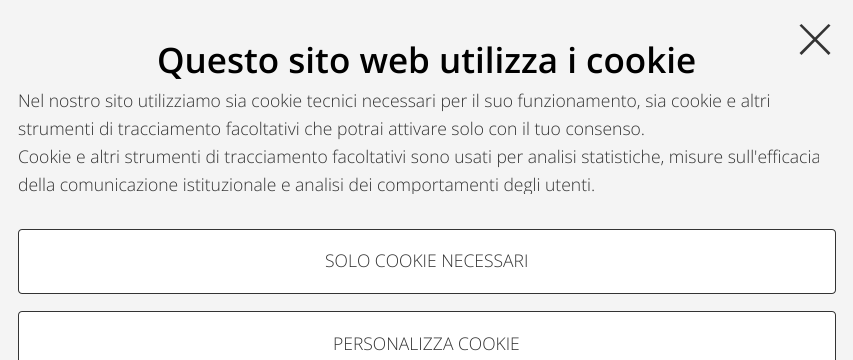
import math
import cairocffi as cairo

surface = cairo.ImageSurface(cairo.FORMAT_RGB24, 853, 360)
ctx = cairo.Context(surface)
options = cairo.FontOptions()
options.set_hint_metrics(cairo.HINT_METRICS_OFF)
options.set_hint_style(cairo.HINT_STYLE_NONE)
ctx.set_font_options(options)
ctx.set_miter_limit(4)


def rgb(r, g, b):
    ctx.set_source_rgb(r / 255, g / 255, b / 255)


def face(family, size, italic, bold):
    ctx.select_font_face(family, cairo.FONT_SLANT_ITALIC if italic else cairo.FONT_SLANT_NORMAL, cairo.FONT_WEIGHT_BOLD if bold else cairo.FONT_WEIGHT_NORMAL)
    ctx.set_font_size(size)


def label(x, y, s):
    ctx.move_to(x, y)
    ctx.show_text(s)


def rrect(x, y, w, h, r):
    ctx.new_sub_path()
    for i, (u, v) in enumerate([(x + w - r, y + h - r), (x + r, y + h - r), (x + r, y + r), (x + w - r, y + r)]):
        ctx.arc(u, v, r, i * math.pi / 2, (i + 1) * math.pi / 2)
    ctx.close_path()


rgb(244, 244, 244)
ctx.paint()
rgb(51, 51, 51)
ctx.new_path()
ctx.move_to(828.5, 24)
ctx.line_to(830.5, 25.5)
ctx.line_to(801.5, 55)
ctx.line_to(799.5, 53)
ctx.close_path()
ctx.fill()
ctx.new_path()
ctx.move_to(799.5, 25.5)
ctx.line_to(801.5, 24)
ctx.line_to(830.5, 53)
ctx.line_to(828.5, 55)
ctx.close_path()
ctx.fill()
face('Open Sans SemiBold', 35, 0, 0)
rgb(0, 0, 0)
label(157, 73, 'Questo sito web utilizza i cookie')
face('Open Sans Light', 17.5, 0, 0)
rgb(51, 51, 51)
label(18, 107, 'Nel nostro sito utilizziamo sia cookie tecnici necessari per il suo funzionamento, sia cookie e altri')
label(18, 135, 'strumenti di tracciamento facoltativi che potrai attivare solo con il tuo consenso.')
label(18, 163, 'Cookie e altri strumenti di tracciamento facoltativi sono usati per analisi statistiche, misure sull\'efficacia')
ctx.save()
ctx.rectangle(18, 31, 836, 163)
ctx.clip()
label(18, 191, 'della comunicazione istituzionale e analisi dei comportamenti degli utenti.')
ctx.restore()
rgb(255, 255, 255)
rrect(18.5, 229.5, 817, 64, 3.5)
ctx.fill_preserve()
rgb(51, 51, 51)
ctx.set_line_width(1)
ctx.stroke()
label(325, 267, 'SOLO COOKIE NECESSARI')
rgb(255, 255, 255)
ctx.new_path()
ctx.move_to(22, 311)
ctx.line_to(832, 311)
ctx.curve_to(834, 311, 836, 313, 836, 315)
ctx.line_to(836, 360)
ctx.line_to(18, 360)
ctx.line_to(18, 315)
ctx.curve_to(18, 313, 20, 311, 22, 311)
ctx.close_path()
ctx.fill()
rrect(18.5, 311.5, 817, 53, 3.5)
rgb(51, 51, 51)
ctx.stroke()
label(333, 350, 'PERSONALIZZA COOKIE')
surface.write_to_png('render.png')
